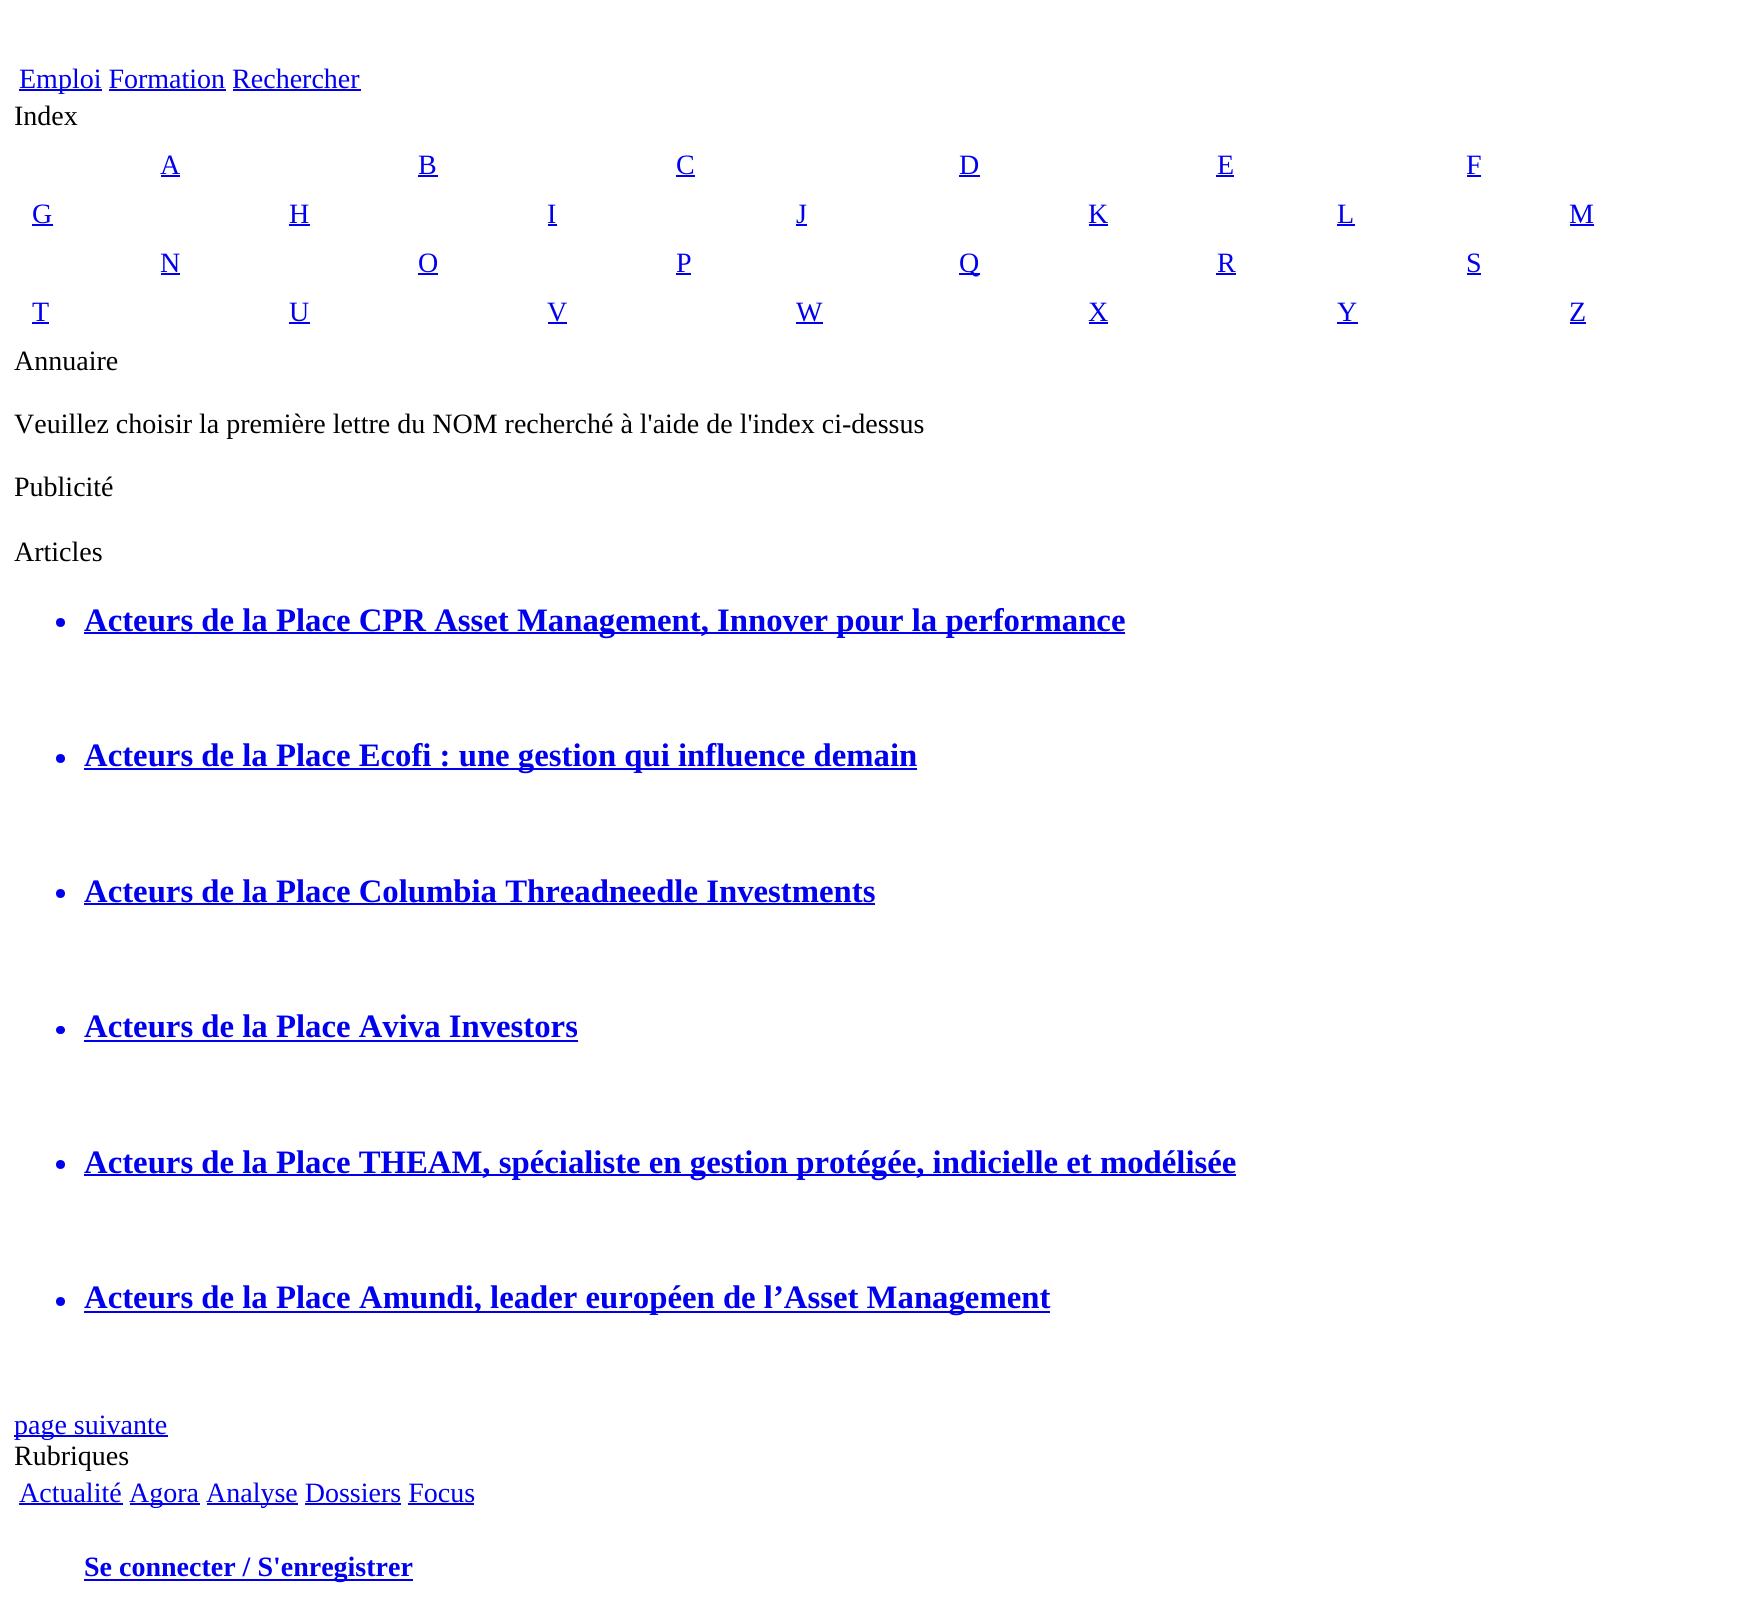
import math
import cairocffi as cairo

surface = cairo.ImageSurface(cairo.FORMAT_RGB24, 1737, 1606)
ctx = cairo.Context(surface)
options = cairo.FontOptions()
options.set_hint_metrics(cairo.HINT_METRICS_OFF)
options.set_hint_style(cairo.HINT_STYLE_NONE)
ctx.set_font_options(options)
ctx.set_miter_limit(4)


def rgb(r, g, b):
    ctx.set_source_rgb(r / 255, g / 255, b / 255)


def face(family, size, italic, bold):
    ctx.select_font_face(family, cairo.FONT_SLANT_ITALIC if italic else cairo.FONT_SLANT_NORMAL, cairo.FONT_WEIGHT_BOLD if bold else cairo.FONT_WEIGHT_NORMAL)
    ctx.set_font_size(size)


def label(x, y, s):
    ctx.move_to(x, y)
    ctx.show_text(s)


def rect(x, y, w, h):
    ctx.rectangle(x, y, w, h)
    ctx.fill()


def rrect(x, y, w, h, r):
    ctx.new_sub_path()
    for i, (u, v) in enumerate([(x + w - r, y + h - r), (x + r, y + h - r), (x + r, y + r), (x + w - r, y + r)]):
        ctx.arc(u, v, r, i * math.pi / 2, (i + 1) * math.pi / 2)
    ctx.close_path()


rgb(255, 255, 255)
ctx.paint()
rgb(0, 0, 238)
rect(19, 89, 83, 2)
face('Liberation Serif', 28, 0, 0)
label(19, 88, 'Emploi Formation Rechercher')
rect(109, 89, 117, 2)
rect(233, 89, 128, 2)
rgb(0, 0, 0)
label(14, 125, 'Index')
rgb(0, 0, 238)
label(160, 174, 'A')
rect(161, 175, 19, 2)
label(418, 174, 'B')
rect(418, 175, 20, 2)
label(676, 174, 'C')
rect(676, 175, 19, 2)
label(959, 174, 'D')
rect(959, 175, 21, 2)
label(1217, 174, 'E')
rect(1216, 175, 18, 2)
label(1466, 174, 'F')
rect(1467, 175, 14, 2)
label(32, 223, 'G')
rect(32, 224, 21, 2)
label(289, 223, 'H')
rect(289, 224, 21, 2)
label(547, 223, 'I')
rect(548, 224, 9, 2)
label(796, 223, 'J')
rect(796, 224, 11, 2)
label(1088, 223, 'K')
rect(1089, 224, 19, 2)
label(1337, 223, 'L')
rect(1337, 224, 18, 2)
label(1569, 223, 'M')
rect(1570, 224, 24, 2)
label(160, 272, 'N')
rect(161, 273, 19, 2)
label(418, 272, 'O')
rect(418, 273, 20, 2)
label(676, 272, 'P')
rect(676, 273, 15, 2)
rect(959, 273, 21, 2)
label(959, 272, 'Q')
label(1217, 272, 'R')
rect(1216, 273, 20, 2)
label(1466, 272, 'S')
rect(1467, 273, 14, 2)
label(32, 321, 'T')
rect(32, 322, 17, 2)
label(289, 321, 'U')
rect(289, 322, 21, 2)
label(547, 321, 'V')
rect(548, 322, 19, 2)
label(796, 321, 'W')
rect(796, 322, 27, 2)
label(1088, 321, 'X')
rect(1089, 322, 19, 2)
label(1337, 321, 'Y')
rect(1337, 322, 21, 2)
label(1569, 321, 'Z')
rect(1570, 322, 16, 2)
rgb(0, 0, 0)
label(14, 370, 'Annuaire')
label(14, 433, 'Veuillez choisir la première lettre du NOM recherché à l\'aide de l\'index ci-dessus')
label(14, 496, 'Publicité')
label(14, 561, 'Articles')
rgb(0, 0, 238)
ctx.new_path()
ctx.arc(60.5, 622.5, 4.5, 0, 2 * math.pi)
ctx.fill()
rect(84, 632, 1041, 2)
face('Liberation Serif', 32.75, 0, 1)
label(84, 631, 'Acteurs de la Place CPR Asset Management, Innover pour la performance')
ctx.new_path()
ctx.arc(60.5, 758.5, 4.5, 0, 2 * math.pi)
ctx.fill()
rect(84, 768, 833, 2)
label(84, 766, 'Acteurs de la Place Ecofi : une gestion qui influence demain')
ctx.new_path()
ctx.arc(60.5, 893.5, 4.5, 0, 2 * math.pi)
ctx.fill()
label(84, 902, 'Acteurs de la Place Columbia Threadneedle Investments')
rect(84, 903, 791, 2)
rrect(56, 1026, 9, 8, 4)
ctx.fill()
label(84, 1037, 'Acteurs de la Place Aviva Investors')
rect(84, 1040, 494, 2)
ctx.new_path()
ctx.arc(60.5, 1164.5, 4.5, 0, 2 * math.pi)
ctx.fill()
rect(84, 1174, 1152, 2)
label(84, 1173, 'Acteurs de la Place THEAM, spécialiste en gestion protégée, indicielle et modélisée')
ctx.new_path()
ctx.arc(60.5, 1301.5, 4.5, 0, 2 * math.pi)
ctx.fill()
label(84, 1308, 'Acteurs de la Place')
rect(84, 1311, 966, 2)
label(359, 1308, 'Amundi, leader européen de l’Asset Management')
rect(14, 1435, 154, 2)
face('Liberation Serif', 28, 0, 0)
label(14, 1434, 'page suivante')
rgb(0, 0, 0)
label(14, 1465, 'Rubriques')
rgb(0, 0, 238)
label(19, 1502, 'Actualité')
rect(19, 1503, 104, 2)
rect(130, 1503, 70, 2)
label(129, 1502, 'Agora')
rect(207, 1503, 91, 2)
label(206, 1502, 'Analyse Dossiers Focus')
rect(305, 1503, 96, 2)
rect(408, 1503, 66, 2)
rect(84, 1579, 329, 2)
face('Liberation Serif', 28, 0, 1)
label(84, 1576, 'Se connecter / S\'enregistrer')
surface.write_to_png('render.png')
